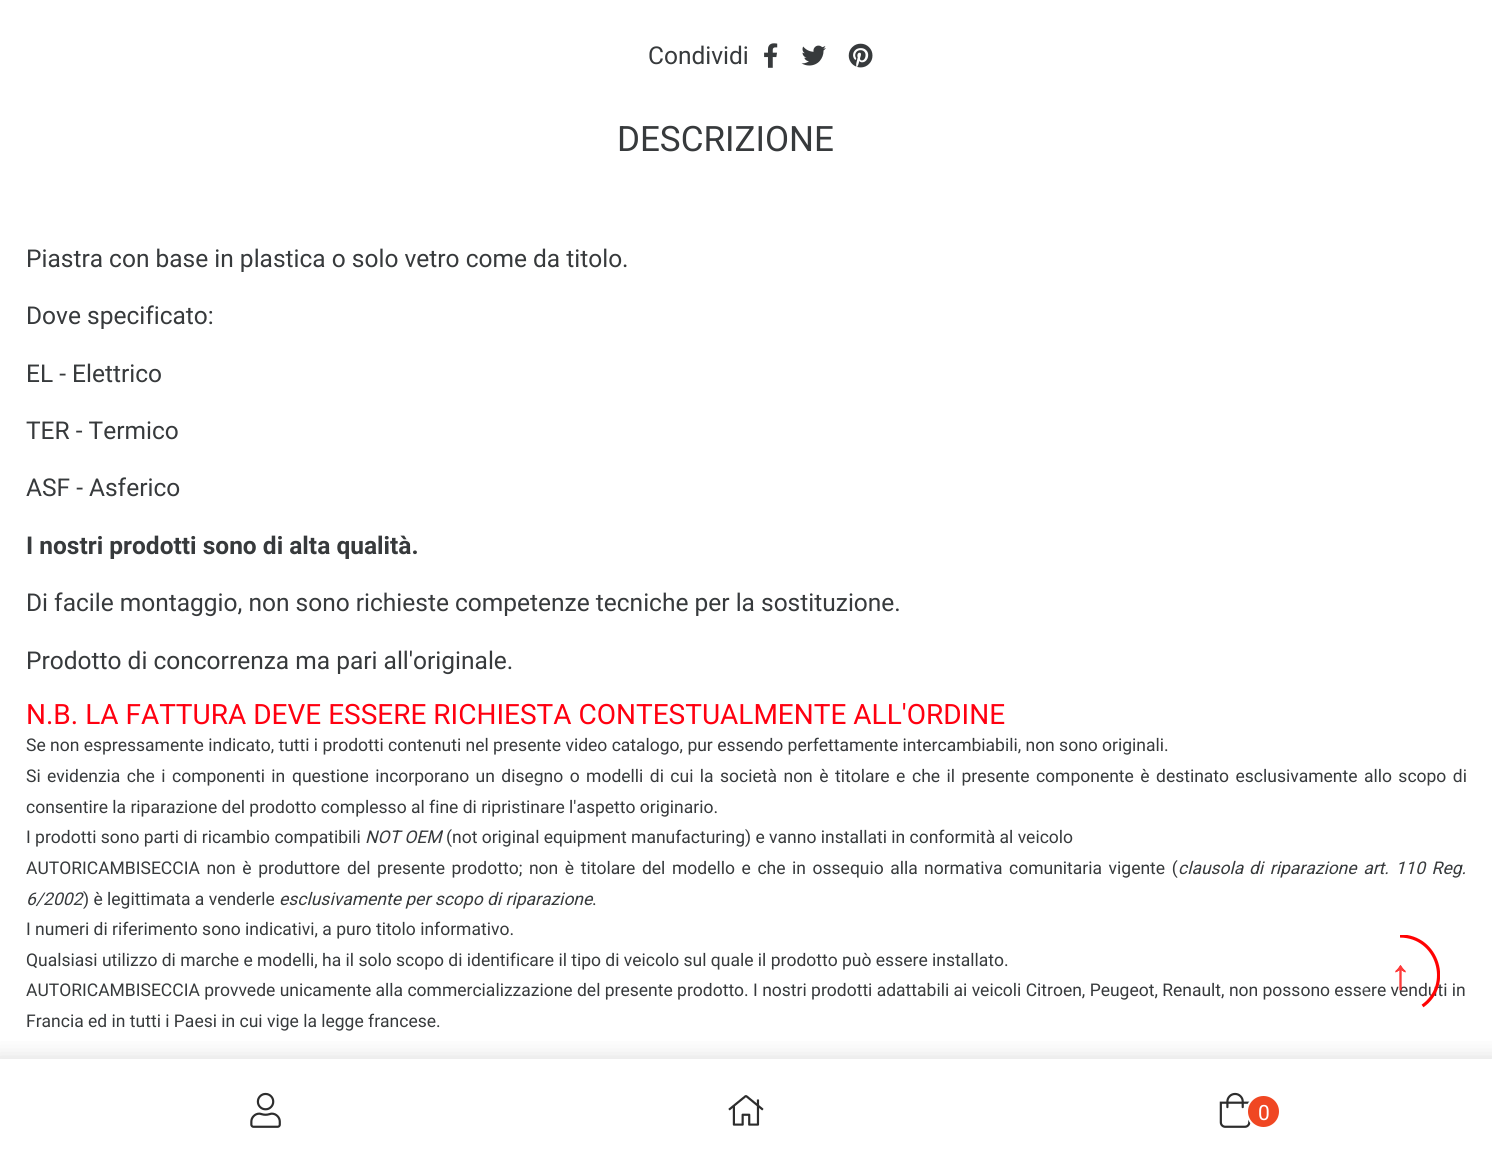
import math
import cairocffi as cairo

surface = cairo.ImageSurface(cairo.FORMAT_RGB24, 1492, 1172)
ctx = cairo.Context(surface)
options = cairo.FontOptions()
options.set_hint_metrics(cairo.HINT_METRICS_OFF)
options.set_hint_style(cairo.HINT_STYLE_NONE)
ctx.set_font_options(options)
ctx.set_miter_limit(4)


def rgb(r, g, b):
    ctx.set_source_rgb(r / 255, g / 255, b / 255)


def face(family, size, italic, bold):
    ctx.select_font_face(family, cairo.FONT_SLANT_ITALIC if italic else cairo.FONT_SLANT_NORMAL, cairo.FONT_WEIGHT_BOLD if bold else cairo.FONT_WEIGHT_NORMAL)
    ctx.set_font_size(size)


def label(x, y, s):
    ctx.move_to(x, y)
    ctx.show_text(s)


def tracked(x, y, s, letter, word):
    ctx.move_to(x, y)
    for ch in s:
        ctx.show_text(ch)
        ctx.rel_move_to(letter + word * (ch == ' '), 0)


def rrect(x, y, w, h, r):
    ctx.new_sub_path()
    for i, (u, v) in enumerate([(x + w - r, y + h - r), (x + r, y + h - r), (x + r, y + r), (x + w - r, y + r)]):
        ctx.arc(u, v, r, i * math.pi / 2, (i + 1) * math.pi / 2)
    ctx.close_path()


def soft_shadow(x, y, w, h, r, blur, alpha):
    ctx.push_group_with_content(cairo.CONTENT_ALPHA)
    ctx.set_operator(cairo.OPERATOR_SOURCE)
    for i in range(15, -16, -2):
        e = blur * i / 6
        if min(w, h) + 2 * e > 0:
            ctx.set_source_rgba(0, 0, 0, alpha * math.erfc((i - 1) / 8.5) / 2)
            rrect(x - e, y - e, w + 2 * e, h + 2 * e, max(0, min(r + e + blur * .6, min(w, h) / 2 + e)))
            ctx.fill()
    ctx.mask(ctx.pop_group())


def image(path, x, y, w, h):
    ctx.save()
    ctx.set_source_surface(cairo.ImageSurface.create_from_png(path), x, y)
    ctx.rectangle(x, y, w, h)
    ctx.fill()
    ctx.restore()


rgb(255, 255, 255)
ctx.paint()
face('Roboto', 24.5, 0, 0)
rgb(55, 58, 60)
label(648, 64, 'Condividi')
image('image0.png', 764, 43, 14, 25)
image('image1.png', 801, 45, 25, 21)
image('image2.png', 848, 43, 25, 25)
face('Roboto', 35, 0, 0)
label(617, 151, 'DESCRIZIONE')
face('Roboto', 24.5, 0, 0)
label(26, 267, 'Piastra con base in plastica o solo vetro come da titolo.')
label(26, 324, 'Dove specificato:')
label(26, 382, 'EL - Elettrico')
label(26, 439, 'TER - Termico')
label(26, 496, 'ASF - Asferico')
face('Roboto', 24.5, 0, 1)
label(26, 554, 'I nostri prodotti sono di alta qualità.')
face('Roboto', 24.5, 0, 0)
label(26, 611, 'Di facile montaggio, non sono richieste competenze tecniche per la sostituzione.')
label(26, 669, 'Prodotto di concorrenza ma pari all\'originale.')
face('Roboto', 28, 0, 0)
rgb(255, 0, 16)
label(26, 724, 'N.B. LA FATTURA DEVE ESSERE RICHIESTA CONTESTUALMENTE ALL\'ORDINE')
face('Roboto', 17.5, 0, 0)
rgb(55, 58, 60)
label(26, 751, 'Se non espressamente indicato, tutti i prodotti contenuti nel presente video catalogo, pur essendo perfettamente intercambiabili, non sono originali.')
tracked(26, 782, 'Si evidenzia che i componenti in', 0, 2.1)
tracked(292, 782, 'questione incorporano un disegno o modelli di cui la società non è titolare e', 0, 2.1)
tracked(912, 782, 'che il presente componente è destinato esclusivamente allo scopo di', 0, 2.1)
label(26, 813, 'consentire la riparazione del prodotto complesso al fine di ripristinare l\'aspetto originario.')
label(26, 843, 'I prodotti sono parti di ricambio compatibili')
face('Roboto', 17.5, 1, 0)
label(365, 843, 'NOT OEM')
face('Roboto', 17.5, 0, 0)
label(446, 843, '(not original equipment manufacturing) e vanno installati in conformità al veicolo')
tracked(26, 874, 'AUTORICAMBISECCIA non è produttore', 0, 2.25)
tracked(347, 874, 'del presente prodotto; non è titolare del modello e che in ossequio alla', 0, 2.25)
tracked(924, 874, 'normativa comunitaria vigente (', 0, 2.25)
face('Roboto', 17.5, 1, 0)
label(1178, 874, 'clausola')
tracked(1249, 874, 'di riparazione art. 110 Reg.', 0, 2.25)
label(26, 905, '6/2002')
face('Roboto', 17.5, 0, 0)
label(83, 905, ') è legittimata a venderle')
face('Roboto', 17.5, 1, 0)
label(279, 905, 'esclusivamente per scopo di riparazione')
face('Roboto', 17.5, 0, 0)
label(592, 905, '.')
label(26, 935, 'I numeri di riferimento sono indicativi, a puro titolo informativo.')
label(26, 966, 'Qualsiasi utilizzo di marche e modelli, ha il solo scopo di identificare il tipo di veicolo sul quale il prodotto può essere installato.')
label(26, 996, 'AUTORICAMBISECCIA provvede unicamente alla commercializzazione del presente prodotto. I nostri prodotti adattabili ai veicoli Citroen, Peugeot, Renault, non possono essere venduti in')
label(26, 1027, 'Francia ed in tutti i Paesi in cui vige la legge francese.')
ctx.new_path()
ctx.arc(1400, 975, 38, 0, 2 * math.pi)
ctx.set_source_rgba(1, 1, 1, 0.2)
ctx.set_line_width(4)
ctx.stroke()
ctx.save()
ctx.rectangle(1360, 935, 80, 80)
ctx.clip()
ctx.new_path()
ctx.move_to(1400, 936)
ctx.curve_to(1438, 936, 1452.5, 985, 1422.5, 1006)
rgb(255, 2, 2)
ctx.set_line_width(3.2)
ctx.stroke()
ctx.restore()
face('Liberation Sans', 42, 0, 0)
rgb(255, 2, 2)
label(1390, 989, '↑')
rgb(254, 59, 59)
label(1390, 989, '↑')
ctx.save()
ctx.rectangle(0, 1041, 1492, 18)
ctx.clip()
rgb(143, 143, 143)
soft_shadow(-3, 1057, 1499, 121, 0, 10.5, 0.3)
ctx.restore()
image('image3.png', 250, 1092, 31, 36)
image('image4.png', 728, 1095, 36, 31)
image('image5.png', 1219, 1092, 32, 36)
rgb(240, 71, 35)
ctx.arc(1263.5, 1111.5, 16.5, 0, 2 * math.pi)
ctx.fill_preserve()
rgb(255, 255, 255)
ctx.set_line_width(2)
ctx.stroke()
face('Roboto', 21, 0, 0)
label(1258, 1120, '0')
surface.write_to_png('render.png')
